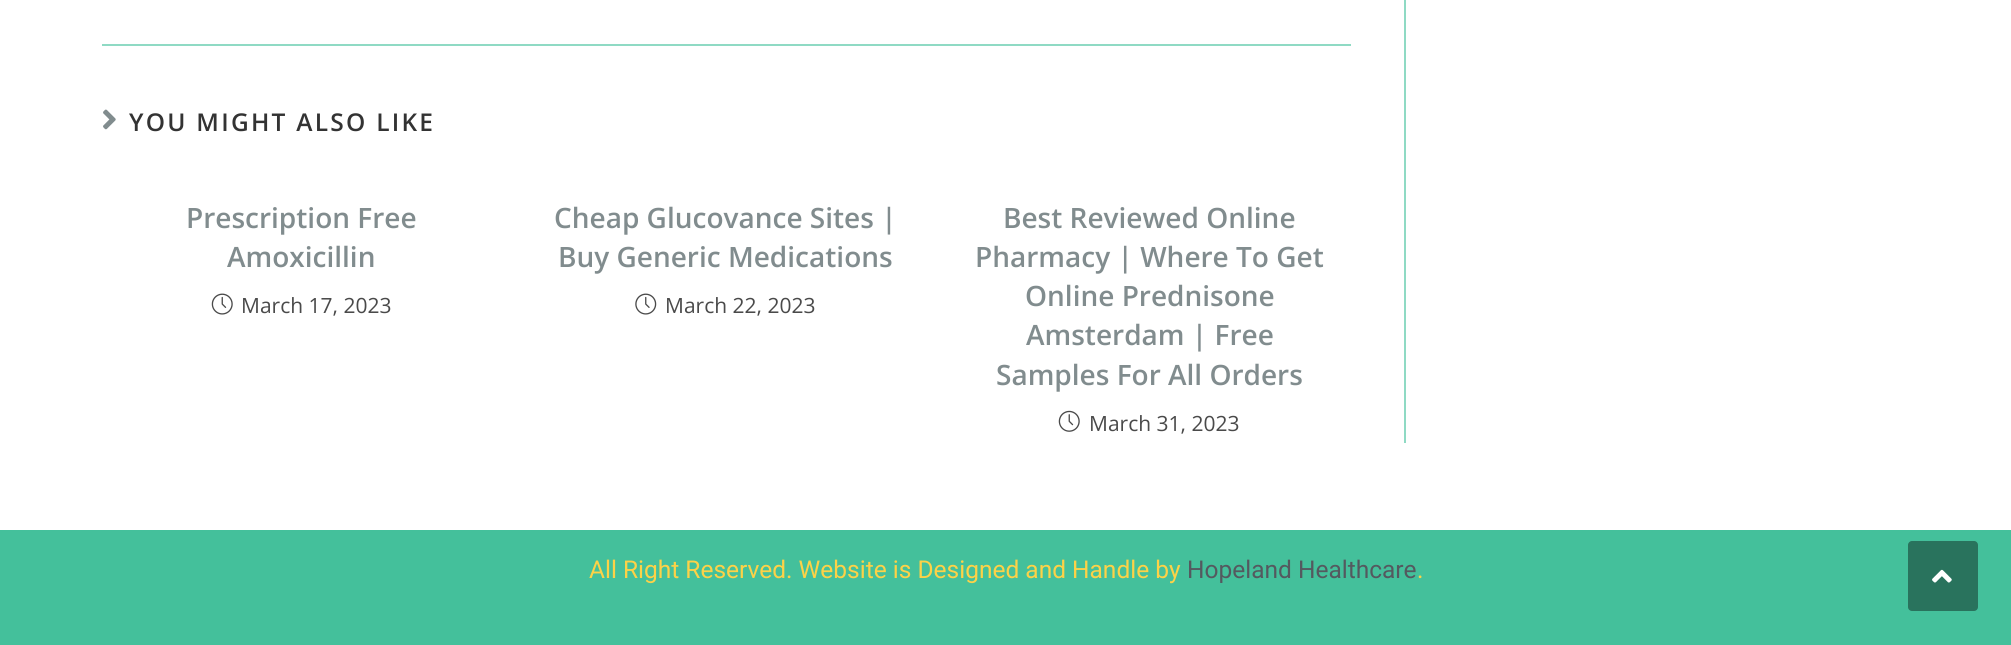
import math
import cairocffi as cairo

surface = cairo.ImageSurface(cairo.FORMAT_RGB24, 2011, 645)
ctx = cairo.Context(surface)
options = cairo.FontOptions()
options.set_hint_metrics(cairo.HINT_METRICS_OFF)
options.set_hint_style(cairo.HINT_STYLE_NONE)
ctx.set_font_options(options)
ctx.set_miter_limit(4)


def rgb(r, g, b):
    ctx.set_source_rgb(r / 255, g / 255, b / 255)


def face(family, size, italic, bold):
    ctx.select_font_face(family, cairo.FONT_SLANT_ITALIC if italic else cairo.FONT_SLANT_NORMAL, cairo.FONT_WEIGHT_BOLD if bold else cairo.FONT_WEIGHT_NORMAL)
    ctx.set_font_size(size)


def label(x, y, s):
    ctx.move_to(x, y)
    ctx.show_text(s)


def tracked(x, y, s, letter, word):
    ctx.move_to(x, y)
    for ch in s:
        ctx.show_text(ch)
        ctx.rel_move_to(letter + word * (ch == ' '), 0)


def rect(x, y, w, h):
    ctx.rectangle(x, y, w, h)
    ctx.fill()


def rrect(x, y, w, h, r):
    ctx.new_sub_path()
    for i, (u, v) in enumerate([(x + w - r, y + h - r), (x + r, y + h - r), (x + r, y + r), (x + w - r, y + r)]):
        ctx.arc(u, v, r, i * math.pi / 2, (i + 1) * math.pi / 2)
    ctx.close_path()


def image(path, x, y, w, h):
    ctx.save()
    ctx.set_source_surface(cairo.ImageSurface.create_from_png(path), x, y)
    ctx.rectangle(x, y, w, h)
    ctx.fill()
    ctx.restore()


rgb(255, 255, 255)
ctx.paint()
rgb(143, 218, 196)
rect(1404, 0, 2, 443)
rect(102, 44, 1249, 2)
image('image0.png', 103, 109, 13, 21)
face('Open Sans SemiBold', 24.5, 0, 0)
rgb(51, 51, 51)
tracked(129, 131, 'YOU MIGHT ALSO LIKE', 2.25, 0)
face('Open Sans SemiBold', 28, 0, 0)
rgb(129, 140, 142)
label(186, 228, 'Prescription Free')
label(227, 267, 'Amoxicillin')
image('image1.png', 211, 293, 22, 22)
face('Open Sans', 21, 0, 0)
rgb(74, 74, 74)
label(241, 313, 'March 17, 2023')
face('Open Sans SemiBold', 28, 0, 0)
rgb(129, 140, 142)
label(554, 228, 'Cheap Glucovance Sites |')
label(558, 267, 'Buy Generic Medications')
image('image2.png', 635, 293, 22, 22)
face('Open Sans', 21, 0, 0)
rgb(74, 74, 74)
label(665, 313, 'March 22, 2023')
face('Open Sans SemiBold', 28, 0, 0)
rgb(129, 140, 142)
label(1003, 228, 'Best Reviewed Online')
label(975, 267, 'Pharmacy | Where To Get')
label(1025, 306, 'Online Prednisone')
label(1026, 345, 'Amsterdam | Free')
label(996, 385, 'Samples For All Orders')
image('image3.png', 1058, 410, 22, 22)
face('Open Sans', 21, 0, 0)
rgb(74, 74, 74)
label(1089, 431, 'March 31, 2023')
rgb(68, 192, 155)
rect(0, 530, 2011, 115)
face('Roboto', 24.5, 0, 0)
rgb(253, 210, 71)
label(589, 578, 'All Right Reserved. Website is Designed and Handle by')
rgb(84, 89, 95)
label(1187, 578, 'Hopeland Healthcare')
rgb(253, 210, 71)
label(1417, 578, '.')
rgb(41, 115, 93)
rrect(1908, 541, 70, 70, 4)
ctx.fill()
image('image4.png', 1932, 569, 20, 14)
surface.write_to_png('render.png')
